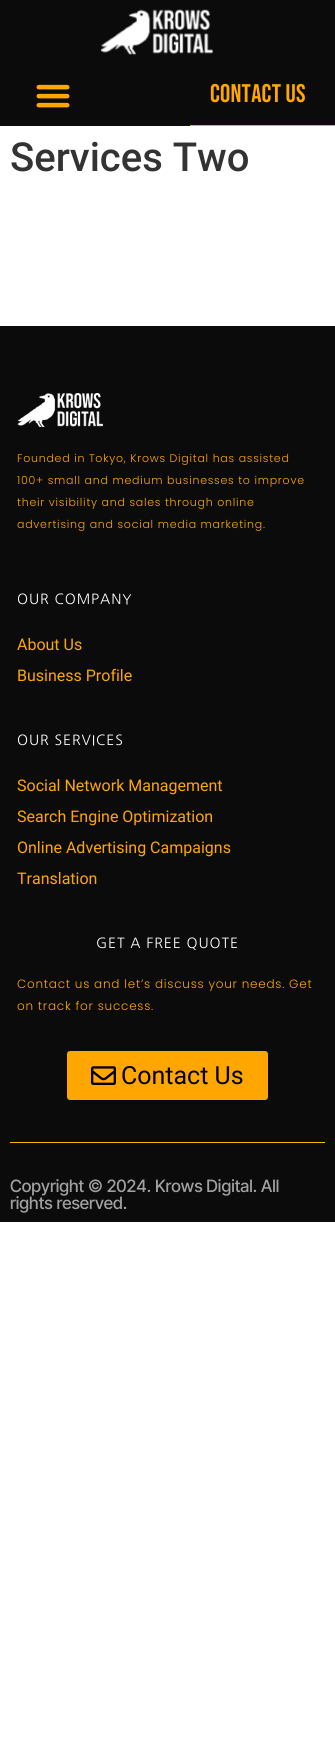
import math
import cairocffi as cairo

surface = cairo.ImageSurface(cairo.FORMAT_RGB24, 335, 1757)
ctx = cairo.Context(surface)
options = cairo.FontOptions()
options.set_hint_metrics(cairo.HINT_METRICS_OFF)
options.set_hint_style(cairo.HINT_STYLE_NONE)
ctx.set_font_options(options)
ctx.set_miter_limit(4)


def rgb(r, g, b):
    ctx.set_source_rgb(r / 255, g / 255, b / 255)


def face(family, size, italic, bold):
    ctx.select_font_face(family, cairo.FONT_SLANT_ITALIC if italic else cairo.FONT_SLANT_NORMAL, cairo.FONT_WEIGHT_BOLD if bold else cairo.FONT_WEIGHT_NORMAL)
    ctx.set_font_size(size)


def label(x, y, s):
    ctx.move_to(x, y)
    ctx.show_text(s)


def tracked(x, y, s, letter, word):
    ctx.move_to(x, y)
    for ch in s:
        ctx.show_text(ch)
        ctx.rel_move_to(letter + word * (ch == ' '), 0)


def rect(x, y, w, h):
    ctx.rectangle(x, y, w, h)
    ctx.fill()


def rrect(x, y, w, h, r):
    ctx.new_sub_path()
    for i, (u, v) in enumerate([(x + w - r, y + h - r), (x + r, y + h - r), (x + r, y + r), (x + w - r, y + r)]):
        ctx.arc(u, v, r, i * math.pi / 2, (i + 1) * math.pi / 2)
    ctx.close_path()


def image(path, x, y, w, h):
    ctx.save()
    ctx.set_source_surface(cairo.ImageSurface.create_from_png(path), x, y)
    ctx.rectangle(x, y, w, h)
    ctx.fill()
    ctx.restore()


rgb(255, 255, 255)
ctx.paint()
rgb(11, 11, 11)
rect(0, 0, 335, 126)
image('image0.png', 100, 9, 113, 46)
image('image1.png', 36, 84, 34, 24)
rgb(255, 166, 0)
rect(190, 125, 145, 1)
face('Bebas Neue', 25.5, 0, 0)
tracked(210, 102, 'CONTACT US', 0.25, 0)
face('Roboto Medium', 40, 0, 0)
rgb(51, 51, 51)
label(10, 171, 'Services Two')
rgb(11, 11, 11)
rect(0, 326, 335, 896)
image('image2.png', 17, 393, 86, 34)
face('Poppins Light', 11, 0, 0)
rgb(255, 166, 0)
tracked(17, 462, 'Founded in Tokyo, Krows Digital has assisted', 0.75, 0)
tracked(17, 484, '100+ small and medium businesses to improve', 0.75, 0)
tracked(17, 506, 'their visibility and sales through online', 0.75, 0)
tracked(17, 528, 'advertising and social media marketing.', 0.75, 0)
face('NanumGothic', 14, 0, 0)
rgb(255, 255, 255)
tracked(17, 604, 'OUR COMPANY', 0.9, 0)
face('Roboto', 16, 0, 0)
rgb(255, 166, 0)
label(17, 650, 'About Us')
label(17, 681, 'Business Profile')
face('NanumGothic', 14, 0, 0)
rgb(255, 255, 255)
tracked(17, 745, 'OUR SERVICES', 0.9, 0)
face('Roboto', 16, 0, 0)
rgb(255, 166, 0)
label(17, 791, 'Social Network Management')
label(17, 822, 'Search Engine Optimization')
label(17, 853, 'Online Advertising Campaigns')
label(17, 884, 'Translation')
face('NanumGothic', 14, 0, 0)
rgb(255, 255, 255)
tracked(96, 948, 'GET A FREE QUOTE', 0.9, 0)
face('Poppins Light', 12, 0, 0)
rgb(255, 166, 0)
tracked(17, 988, 'Contact us and let’s discuss your needs. Get', 0.75, 0)
tracked(17, 1010, 'on track for success.', 0.75, 0)
rrect(67, 1051, 201, 49, 3)
ctx.fill()
image('image3.png', 91, 1066, 25, 19)
face('Roboto', 25, 0, 0)
rgb(0, 0, 0)
label(121, 1084, 'Contact Us')
rgb(252, 185, 0)
rect(10, 1142, 315, 1)
face('Inter Tight Medium', 17, 0, 0)
rgb(160, 160, 160)
label(10, 1192, 'Copyright © 2024. Krows Digital. All')
label(10, 1209, 'rights reserved.')
surface.write_to_png('render.png')
